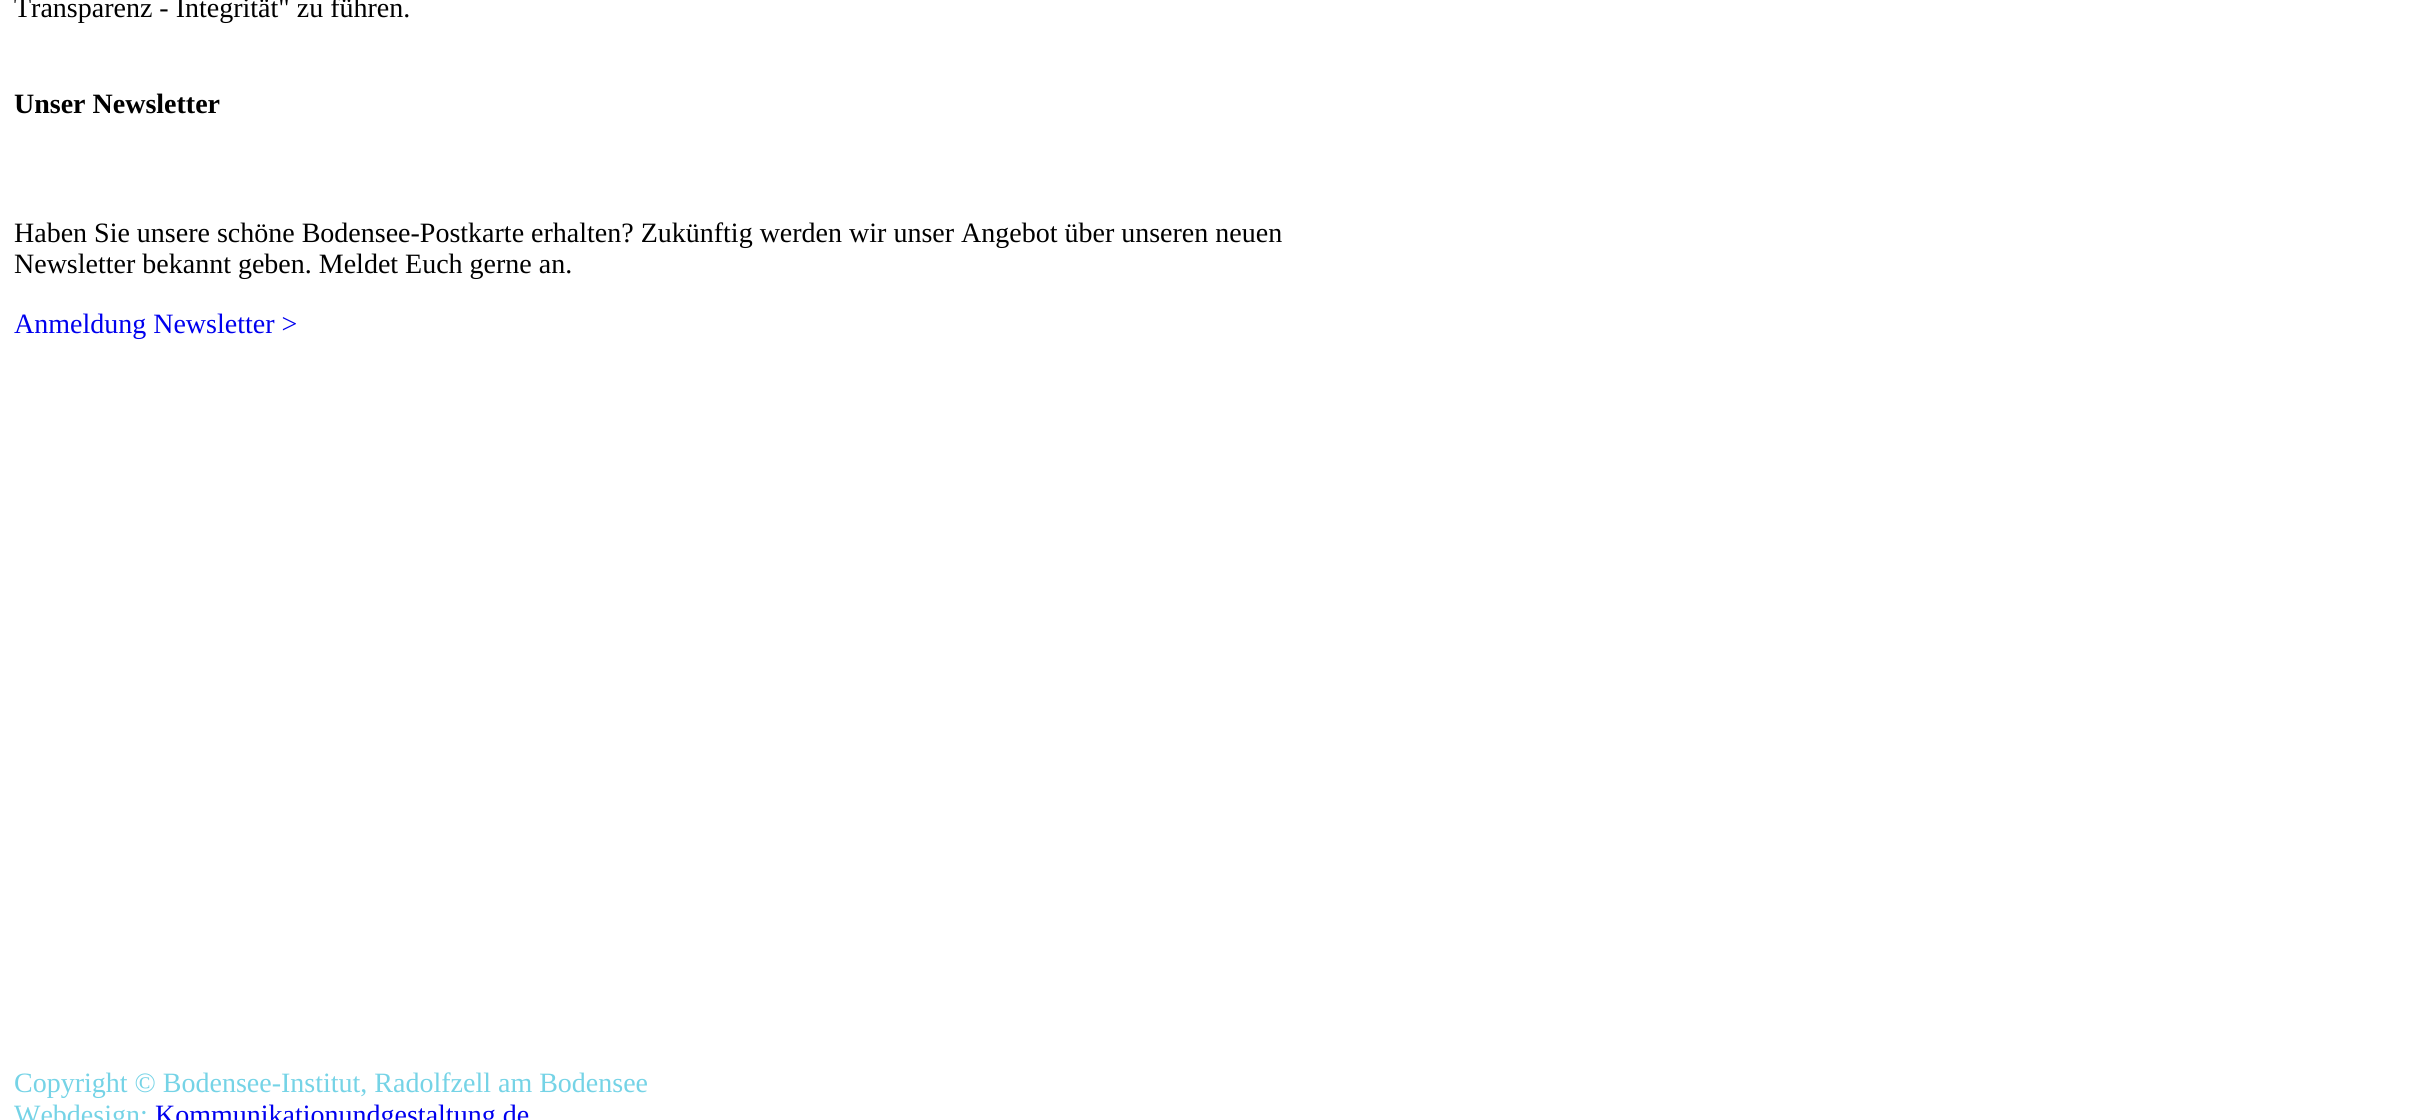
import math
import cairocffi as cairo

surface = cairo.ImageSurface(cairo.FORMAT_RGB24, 2435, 1120)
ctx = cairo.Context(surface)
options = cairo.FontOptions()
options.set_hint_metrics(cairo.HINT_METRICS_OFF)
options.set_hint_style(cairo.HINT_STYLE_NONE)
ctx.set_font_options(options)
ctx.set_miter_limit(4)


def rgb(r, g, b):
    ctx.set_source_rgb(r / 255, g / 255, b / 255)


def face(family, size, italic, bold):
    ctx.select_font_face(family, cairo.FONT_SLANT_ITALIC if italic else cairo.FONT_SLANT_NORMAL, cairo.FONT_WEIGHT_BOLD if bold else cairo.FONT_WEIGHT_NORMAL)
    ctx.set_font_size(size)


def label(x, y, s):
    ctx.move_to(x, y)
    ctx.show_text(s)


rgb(255, 255, 255)
ctx.paint()
face('Liberation Serif', 28, 0, 0)
rgb(0, 0, 0)
label(14, 17, 'Transparenz - Integrität" zu führen.')
face('Liberation Serif', 28, 0, 1)
label(14, 113, 'Unser Newsletter')
face('Liberation Serif', 28, 0, 0)
label(14, 242, 'Haben Sie unsere schöne Bodensee-Postkarte erhalten? Zukünftig werden wir unser Angebot über unseren neuen')
label(14, 273, 'Newsletter bekannt geben. Meldet Euch gerne an.')
rgb(0, 0, 238)
label(14, 333, 'Anmeldung Newsletter >')
rgb(117, 211, 230)
label(14, 1092, 'Copyright © Bodensee-Institut, Radolfzell am Bodensee')
label(14, 1124, 'Webdesign:')
rgb(0, 0, 238)
label(155, 1124, 'Kommunikationundgestaltung.de')
surface.write_to_png('render.png')
